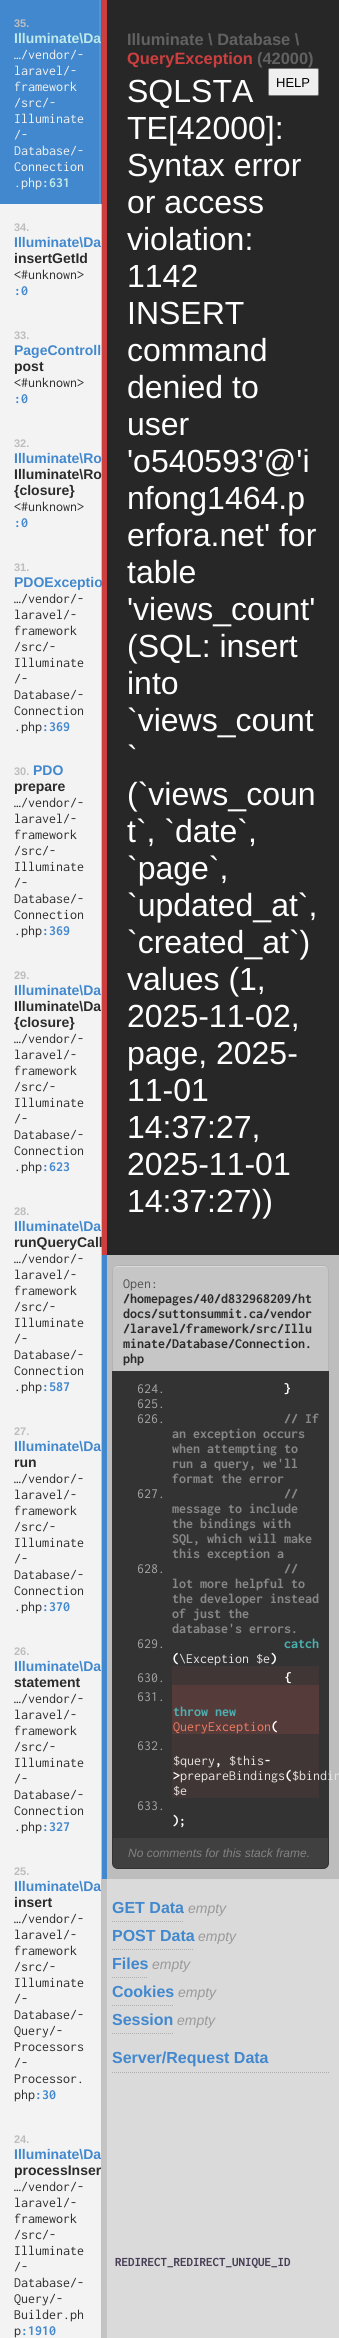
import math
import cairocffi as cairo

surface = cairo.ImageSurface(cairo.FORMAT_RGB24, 339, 2338)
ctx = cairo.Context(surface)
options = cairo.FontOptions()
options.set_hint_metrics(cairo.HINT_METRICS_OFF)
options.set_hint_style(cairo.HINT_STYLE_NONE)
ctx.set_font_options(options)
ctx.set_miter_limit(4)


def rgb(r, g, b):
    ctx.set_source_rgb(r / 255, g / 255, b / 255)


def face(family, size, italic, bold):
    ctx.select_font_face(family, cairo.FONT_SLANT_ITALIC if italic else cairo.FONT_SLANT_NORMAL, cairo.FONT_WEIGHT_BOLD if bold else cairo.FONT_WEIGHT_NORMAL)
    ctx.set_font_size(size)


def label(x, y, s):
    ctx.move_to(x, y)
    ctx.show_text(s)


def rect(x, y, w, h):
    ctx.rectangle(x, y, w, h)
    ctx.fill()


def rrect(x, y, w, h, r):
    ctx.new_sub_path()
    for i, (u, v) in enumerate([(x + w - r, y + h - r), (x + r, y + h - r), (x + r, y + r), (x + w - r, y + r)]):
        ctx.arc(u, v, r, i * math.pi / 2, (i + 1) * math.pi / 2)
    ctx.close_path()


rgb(66, 136, 206)
ctx.paint()
rgb(85, 148, 211)
rect(99, 0, 2, 204)
rgb(53, 109, 165)
rect(101, 0, 1, 204)
face('Liberation Sans', 11, 0, 1)
rgb(189, 189, 189)
label(14, 27, '35.')
face('Liberation Sans', 14, 0, 1)
rgb(190, 233, 234)
label(14, 43, 'Illuminate\\Da')
face('Inconsolata', 14, 0, 0)
rgb(243, 243, 243)
label(14, 59, '…/vendor/-')
label(14, 75, 'laravel/-')
label(14, 91, 'framework')
label(14, 107, '/src/-')
label(14, 123, 'Illuminate')
label(14, 139, '/-')
label(14, 155, 'Database/-')
label(14, 171, 'Connection')
label(14, 187, '.php')
face('Inconsolata', 14, 0, 1)
rgb(190, 233, 234)
label(42, 187, ':631')
rgb(243, 243, 243)
rect(0, 204, 101, 2134)
rgb(194, 194, 194)
rect(101, 204, 1, 2134)
face('Liberation Sans', 11, 0, 1)
rgb(189, 189, 189)
label(14, 231, '34.')
face('Liberation Sans', 14, 0, 1)
rgb(66, 136, 206)
label(14, 247, 'Illuminate\\Da')
rgb(43, 43, 43)
label(14, 263, 'insertGetId')
face('Inconsolata', 14, 0, 0)
label(14, 279, '<#unknown>')
face('Inconsolata', 14, 0, 1)
rgb(66, 136, 206)
label(14, 295, ':0')
face('Liberation Sans', 11, 0, 1)
rgb(189, 189, 189)
label(14, 339, '33.')
face('Liberation Sans', 14, 0, 1)
rgb(66, 136, 206)
label(14, 355, 'PageControll')
rgb(43, 43, 43)
label(14, 371, 'post')
face('Inconsolata', 14, 0, 0)
label(14, 387, '<#unknown>')
face('Inconsolata', 14, 0, 1)
rgb(66, 136, 206)
label(14, 403, ':0')
face('Liberation Sans', 11, 0, 1)
rgb(189, 189, 189)
label(14, 447, '32.')
face('Liberation Sans', 14, 0, 1)
rgb(66, 136, 206)
label(14, 463, 'Illuminate\\Ro')
rgb(43, 43, 43)
label(14, 479, 'Illuminate\\Ro')
label(14, 495, '{closure}')
face('Inconsolata', 14, 0, 0)
label(14, 511, '<#unknown>')
face('Inconsolata', 14, 0, 1)
rgb(66, 136, 206)
label(14, 527, ':0')
face('Liberation Sans', 11, 0, 1)
rgb(189, 189, 189)
label(14, 571, '31.')
face('Liberation Sans', 14, 0, 1)
rgb(66, 136, 206)
label(14, 587, 'PDOExceptio')
face('Inconsolata', 14, 0, 0)
rgb(43, 43, 43)
label(14, 603, '…/vendor/-')
label(14, 619, 'laravel/-')
label(14, 635, 'framework')
label(14, 651, '/src/-')
label(14, 667, 'Illuminate')
label(14, 683, '/-')
label(14, 699, 'Database/-')
label(14, 715, 'Connection')
label(14, 731, '.php')
face('Inconsolata', 14, 0, 1)
rgb(66, 136, 206)
label(42, 731, ':369')
face('Liberation Sans', 11, 0, 1)
rgb(189, 189, 189)
label(14, 775, '30.')
face('Liberation Sans', 14, 0, 1)
rgb(66, 136, 206)
label(33, 775, 'PDO')
rgb(43, 43, 43)
label(14, 791, 'prepare')
face('Inconsolata', 14, 0, 0)
label(14, 807, '…/vendor/-')
label(14, 823, 'laravel/-')
label(14, 839, 'framework')
label(14, 855, '/src/-')
label(14, 871, 'Illuminate')
label(14, 887, '/-')
label(14, 903, 'Database/-')
label(14, 919, 'Connection')
label(14, 935, '.php')
face('Inconsolata', 14, 0, 1)
rgb(66, 136, 206)
label(42, 935, ':369')
face('Liberation Sans', 11, 0, 1)
rgb(189, 189, 189)
label(14, 979, '29.')
face('Liberation Sans', 14, 0, 1)
rgb(66, 136, 206)
label(14, 995, 'Illuminate\\Da')
rgb(43, 43, 43)
label(14, 1011, 'Illuminate\\Da')
label(14, 1027, '{closure}')
face('Inconsolata', 14, 0, 0)
label(14, 1043, '…/vendor/-')
label(14, 1059, 'laravel/-')
label(14, 1075, 'framework')
label(14, 1091, '/src/-')
label(14, 1107, 'Illuminate')
label(14, 1123, '/-')
label(14, 1139, 'Database/-')
label(14, 1155, 'Connection')
label(14, 1171, '.php')
face('Inconsolata', 14, 0, 1)
rgb(66, 136, 206)
label(42, 1171, ':623')
face('Liberation Sans', 11, 0, 1)
rgb(189, 189, 189)
label(14, 1215, '28.')
face('Liberation Sans', 14, 0, 1)
rgb(66, 136, 206)
label(14, 1231, 'Illuminate\\Da')
rgb(43, 43, 43)
label(14, 1247, 'runQueryCall')
face('Inconsolata', 14, 0, 0)
label(14, 1263, '…/vendor/-')
label(14, 1279, 'laravel/-')
label(14, 1295, 'framework')
label(14, 1311, '/src/-')
label(14, 1327, 'Illuminate')
label(14, 1343, '/-')
label(14, 1359, 'Database/-')
label(14, 1375, 'Connection')
label(14, 1391, '.php')
face('Inconsolata', 14, 0, 1)
rgb(66, 136, 206)
label(42, 1391, ':587')
face('Liberation Sans', 11, 0, 1)
rgb(189, 189, 189)
label(14, 1435, '27.')
face('Liberation Sans', 14, 0, 1)
rgb(66, 136, 206)
label(14, 1451, 'Illuminate\\Da')
rgb(43, 43, 43)
label(14, 1467, 'run')
face('Inconsolata', 14, 0, 0)
label(14, 1483, '…/vendor/-')
label(14, 1499, 'laravel/-')
label(14, 1515, 'framework')
label(14, 1531, '/src/-')
label(14, 1547, 'Illuminate')
label(14, 1563, '/-')
label(14, 1579, 'Database/-')
label(14, 1595, 'Connection')
label(14, 1611, '.php')
face('Inconsolata', 14, 0, 1)
rgb(66, 136, 206)
label(42, 1611, ':370')
face('Liberation Sans', 11, 0, 1)
rgb(189, 189, 189)
label(14, 1655, '26.')
face('Liberation Sans', 14, 0, 1)
rgb(66, 136, 206)
label(14, 1671, 'Illuminate\\Da')
rgb(43, 43, 43)
label(14, 1687, 'statement')
face('Inconsolata', 14, 0, 0)
label(14, 1703, '…/vendor/-')
label(14, 1719, 'laravel/-')
label(14, 1735, 'framework')
label(14, 1751, '/src/-')
label(14, 1767, 'Illuminate')
label(14, 1783, '/-')
label(14, 1799, 'Database/-')
label(14, 1815, 'Connection')
label(14, 1831, '.php')
face('Inconsolata', 14, 0, 1)
rgb(66, 136, 206)
label(42, 1831, ':327')
face('Liberation Sans', 11, 0, 1)
rgb(189, 189, 189)
label(14, 1875, '25.')
face('Liberation Sans', 14, 0, 1)
rgb(66, 136, 206)
label(14, 1891, 'Illuminate\\Da')
rgb(43, 43, 43)
label(14, 1907, 'insert')
face('Inconsolata', 14, 0, 0)
label(14, 1923, '…/vendor/-')
label(14, 1939, 'laravel/-')
label(14, 1955, 'framework')
label(14, 1971, '/src/-')
label(14, 1987, 'Illuminate')
label(14, 2003, '/-')
label(14, 2019, 'Database/-')
label(14, 2035, 'Query/-')
label(14, 2051, 'Processors')
label(14, 2067, '/-')
label(14, 2083, 'Processor.')
label(14, 2099, 'php')
face('Inconsolata', 14, 0, 1)
rgb(66, 136, 206)
label(35, 2099, ':30')
face('Liberation Sans', 11, 0, 1)
rgb(189, 189, 189)
label(14, 2143, '24.')
face('Liberation Sans', 14, 0, 1)
rgb(66, 136, 206)
label(14, 2159, 'Illuminate\\Da')
rgb(43, 43, 43)
label(14, 2175, 'processInser')
face('Inconsolata', 14, 0, 0)
label(14, 2191, '…/vendor/-')
label(14, 2207, 'laravel/-')
label(14, 2223, 'framework')
label(14, 2239, '/src/-')
label(14, 2255, 'Illuminate')
label(14, 2271, '/-')
label(14, 2287, 'Database/-')
label(14, 2303, 'Query/-')
label(14, 2319, 'Builder.ph')
label(14, 2335, 'p')
face('Inconsolata', 14, 0, 1)
rgb(66, 136, 206)
label(21, 2335, ':1910')
rgb(218, 218, 218)
rect(107, 1879, 232, 459)
rgb(39, 39, 39)
rect(107, 0, 232, 1255)
rgb(205, 63, 63)
rect(102, 0, 5, 1255)
face('Liberation Sans', 16.4, 0, 1)
rgb(97, 97, 97)
label(127, 45, 'Illuminate \\ Database \\')
rgb(205, 63, 63)
label(127, 64, 'QueryException')
rgb(97, 97, 97)
label(257, 64, '(42000)')
rgb(239, 239, 239)
rrect(268.5, 68.5, 50, 27, 1.5)
ctx.fill_preserve()
rgb(118, 118, 118)
ctx.set_line_width(1)
ctx.stroke()
face('Liberation Sans', 13, 0, 0)
rgb(0, 0, 0)
label(276, 87, 'HELP')
face('Liberation Sans', 32, 0, 0)
rgb(255, 255, 255)
label(127, 102, 'SQLSTA')
label(127, 139, 'TE[42000]:')
label(127, 176, 'Syntax error')
label(127, 213, 'or access')
label(127, 250, 'violation:')
label(127, 287, '1142')
label(127, 324, 'INSERT')
label(127, 361, 'command')
label(127, 398, 'denied to')
label(127, 435, 'user')
label(127, 472, '\'o540593\'@\'i')
label(127, 509, 'nfong1464.p')
label(127, 546, 'erfora.net\' for')
label(127, 583, 'table')
label(127, 620, '\'views_count\'')
label(127, 657, '(SQL: insert')
label(127, 694, 'into')
label(127, 731, '`views_count')
label(127, 768, '`')
label(127, 805, '(`views_coun')
label(127, 842, 't`, `date`,')
label(127, 879, '`page`,')
label(127, 916, '`updated_at`,')
label(127, 953, '`created_at`)')
label(127, 990, 'values (1,')
label(127, 1027, '2025-11-02,')
label(127, 1064, 'page, 2025-')
label(127, 1101, '11-01')
label(127, 1138, '14:37:27,')
label(127, 1175, '2025-11-01')
label(127, 1212, '14:37:27))')
rgb(189, 189, 189)
rect(107, 1255, 232, 624)
rgb(198, 198, 198)
ctx.new_path()
ctx.move_to(118, 1265)
ctx.line_to(323, 1265)
ctx.curve_to(326.5, 1265, 329, 1267.5, 329, 1271)
ctx.line_to(329, 1371)
ctx.line_to(112, 1371)
ctx.line_to(112, 1271)
ctx.curve_to(112, 1267.5, 114.5, 1265, 118, 1265)
ctx.close_path()
ctx.fill()
rgb(218, 218, 218)
ctx.new_path()
ctx.move_to(118, 1267)
ctx.line_to(323, 1267)
ctx.curve_to(326, 1267, 328, 1269, 328, 1272)
ctx.curve_to(328, 1269, 326, 1266, 323, 1266)
ctx.line_to(117, 1266)
ctx.curve_to(114, 1267, 113, 1269, 113, 1272)
ctx.curve_to(113, 1269, 115, 1267, 118, 1267)
ctx.close_path()
ctx.fill()
ctx.set_source_rgba(0, 0, 0, 0.1)
ctx.set_fill_rule(cairo.FILL_RULE_EVEN_ODD)
ctx.new_path()
ctx.move_to(118, 1265)
ctx.line_to(323, 1265)
ctx.curve_to(326, 1265, 329, 1268, 329, 1271)
ctx.line_to(329, 1371)
ctx.line_to(112, 1371)
ctx.line_to(112, 1271)
ctx.curve_to(112, 1268, 115, 1265, 118, 1265)
ctx.close_path()
ctx.move_to(118, 1266)
ctx.line_to(323, 1266)
ctx.curve_to(326, 1266, 328, 1268, 328, 1271)
ctx.line_to(328, 1371)
ctx.line_to(113, 1371)
ctx.line_to(113, 1271)
ctx.curve_to(113, 1268, 115, 1266, 118, 1266)
ctx.close_path()
ctx.fill()
face('Inconsolata', 14, 0, 0)
rgb(82, 82, 82)
label(123, 1288, 'Open:')
face('Inconsolata', 14, 0, 1)
rgb(43, 43, 43)
label(123, 1303, '/homepages/40/d832968209/ht')
label(123, 1318, 'docs/suttonsummit.ca/vendor')
label(123, 1333, '/laravel/framework/src/Illu')
label(123, 1348, 'minate/Database/Connection.')
label(123, 1363, 'php')
rgb(51, 51, 51)
rect(112, 1371, 217, 467)
face('Inconsolata', 14, 0, 0)
rgb(165, 165, 165)
label(137, 1393, '624.')
face('Inconsolata', 14, 0, 1)
rgb(255, 255, 255)
label(284, 1393, '}')
face('Inconsolata', 14, 0, 0)
rgb(165, 165, 165)
label(137, 1408, '625.')
label(137, 1423, '626.')
face('Inconsolata', 14, 0, 1)
rgb(136, 136, 136)
label(284, 1423, '// If')
label(172, 1438, 'an exception occurs')
label(172, 1453, 'when attempting to')
label(172, 1468, 'run a query, we\'ll')
label(172, 1483, 'format the error')
face('Inconsolata', 14, 0, 0)
rgb(165, 165, 165)
label(137, 1498, '627.')
face('Inconsolata', 14, 0, 1)
rgb(136, 136, 136)
label(284, 1498, '//')
label(172, 1513, 'message to include')
label(172, 1528, 'the bindings with')
label(172, 1543, 'SQL, which will make')
label(172, 1558, 'this exception a')
face('Inconsolata', 14, 0, 0)
rgb(165, 165, 165)
label(137, 1573, '628.')
face('Inconsolata', 14, 0, 1)
rgb(136, 136, 136)
label(284, 1573, '//')
label(172, 1588, 'lot more helpful to')
label(172, 1603, 'the developer instead')
label(172, 1618, 'of just the')
label(172, 1633, 'database\'s errors.')
face('Inconsolata', 14, 0, 0)
rgb(165, 165, 165)
label(137, 1648, '629.')
face('Inconsolata', 14, 0, 1)
rgb(75, 177, 177)
label(284, 1648, 'catch')
rgb(255, 255, 255)
label(172, 1663, '(')
face('Inconsolata', 14, 0, 0)
rgb(233, 228, 229)
label(179, 1663, '\\Exception $e')
face('Inconsolata', 14, 0, 1)
rgb(255, 255, 255)
label(270, 1663, ')')
rgb(65, 54, 54)
rect(172, 1666, 147, 19)
face('Inconsolata', 14, 0, 0)
rgb(165, 165, 165)
label(137, 1682, '630.')
face('Inconsolata', 14, 0, 1)
rgb(255, 255, 255)
label(285, 1682, '{')
rgb(86, 59, 59)
rect(172, 1685, 147, 49)
face('Inconsolata', 14, 0, 0)
rgb(165, 165, 165)
label(137, 1701, '631.')
face('Inconsolata', 14, 0, 1)
rgb(75, 177, 177)
label(173, 1716, 'throw new')
face('Inconsolata', 14, 0, 0)
rgb(239, 124, 97)
label(173, 1731, 'QueryException')
face('Inconsolata', 14, 0, 1)
rgb(255, 255, 255)
label(271, 1731, '(')
rgb(65, 54, 54)
rect(172, 1734, 147, 64)
face('Inconsolata', 14, 0, 0)
rgb(165, 165, 165)
label(137, 1750, '632.')
rgb(233, 228, 229)
label(173, 1765, '$query')
label(229, 1765, '$this')
face('Inconsolata', 14, 0, 1)
rgb(255, 255, 255)
label(264, 1765, '-')
label(215, 1765, ',')
face('Inconsolata', 14, 0, 0)
rgb(233, 228, 229)
label(180, 1780, 'prepareBindings $bindin')
face('Inconsolata', 14, 0, 1)
rgb(255, 255, 255)
label(285, 1780, '(')
label(173, 1780, '>')
face('Inconsolata', 14, 0, 0)
rgb(233, 228, 229)
label(173, 1795, '$e')
rgb(165, 165, 165)
label(137, 1810, '633.')
face('Inconsolata', 14, 0, 1)
rgb(255, 255, 255)
label(172, 1825, ');')
rgb(64, 64, 64)
ctx.new_path()
ctx.move_to(112, 1838)
ctx.line_to(329, 1838)
ctx.line_to(329, 1863)
ctx.curve_to(329, 1866.5, 326.5, 1869, 323, 1869)
ctx.line_to(118, 1869)
ctx.curve_to(114.5, 1869, 112, 1866.5, 112, 1863)
ctx.close_path()
ctx.fill()
ctx.set_source_rgba(0, 0, 0, 0.2)
ctx.new_path()
ctx.move_to(112, 1838)
ctx.line_to(329, 1838)
ctx.line_to(329, 1863)
ctx.curve_to(329, 1866, 326, 1869, 323, 1869)
ctx.line_to(118, 1869)
ctx.curve_to(115, 1869, 112, 1866, 112, 1863)
ctx.close_path()
ctx.move_to(113, 1838)
ctx.line_to(328, 1838)
ctx.line_to(328, 1863)
ctx.curve_to(328, 1866, 326, 1868, 323, 1868)
ctx.line_to(118, 1868)
ctx.curve_to(115, 1868, 113, 1866, 113, 1863)
ctx.close_path()
ctx.fill()
face('Liberation Sans', 12, 1, 0)
rgb(130, 130, 130)
label(128, 1857, 'No comments for this stack frame.')
rgb(196, 196, 196)
rect(102, 1879, 5, 459)
face('Liberation Sans', 16, 0, 1)
rgb(66, 136, 206)
label(112, 1913, 'GET Data')
ctx.new_path()
ctx.move_to(112, 1921.5)
ctx.line_to(184, 1921.5)
rgb(174, 174, 174)
ctx.set_dash([1, 1])
ctx.stroke()
face('Liberation Sans', 14, 1, 0)
rgb(153, 153, 153)
label(188, 1913, 'empty')
face('Liberation Sans', 16, 0, 1)
rgb(66, 136, 206)
label(112, 1941, 'POST Data')
ctx.new_path()
ctx.move_to(112, 1949.5)
ctx.line_to(194, 1949.5)
rgb(174, 174, 174)
ctx.stroke()
face('Liberation Sans', 14, 1, 0)
rgb(153, 153, 153)
label(198, 1941, 'empty')
face('Liberation Sans', 16, 0, 1)
rgb(66, 136, 206)
label(112, 1969, 'Files')
ctx.new_path()
ctx.move_to(112, 1977.5)
ctx.line_to(148, 1977.5)
rgb(174, 174, 174)
ctx.stroke()
face('Liberation Sans', 14, 1, 0)
rgb(153, 153, 153)
label(152, 1969, 'empty')
face('Liberation Sans', 16, 0, 1)
rgb(66, 136, 206)
label(112, 1997, 'Cookies')
ctx.new_path()
ctx.move_to(112, 2005.5)
ctx.line_to(174, 2005.5)
rgb(174, 174, 174)
ctx.stroke()
face('Liberation Sans', 14, 1, 0)
rgb(153, 153, 153)
label(178, 1997, 'empty')
face('Liberation Sans', 16, 0, 1)
rgb(66, 136, 206)
label(112, 2025, 'Session')
ctx.new_path()
ctx.move_to(112, 2033.5)
ctx.line_to(173, 2033.5)
rgb(174, 174, 174)
ctx.stroke()
face('Liberation Sans', 14, 1, 0)
rgb(153, 153, 153)
label(177, 2025, 'empty')
ctx.new_path()
ctx.move_to(112, 2072.5)
ctx.line_to(329, 2072.5)
rgb(174, 174, 174)
ctx.stroke()
face('Liberation Sans', 16, 0, 1)
rgb(66, 136, 206)
label(112, 2063, 'Server/Request Data')
face('Inconsolata', 13, 0, 1)
rgb(70, 60, 84)
label(115, 2266, 'REDIRECT_REDIRECT_UNIQUE_ID')
surface.write_to_png('render.png')
